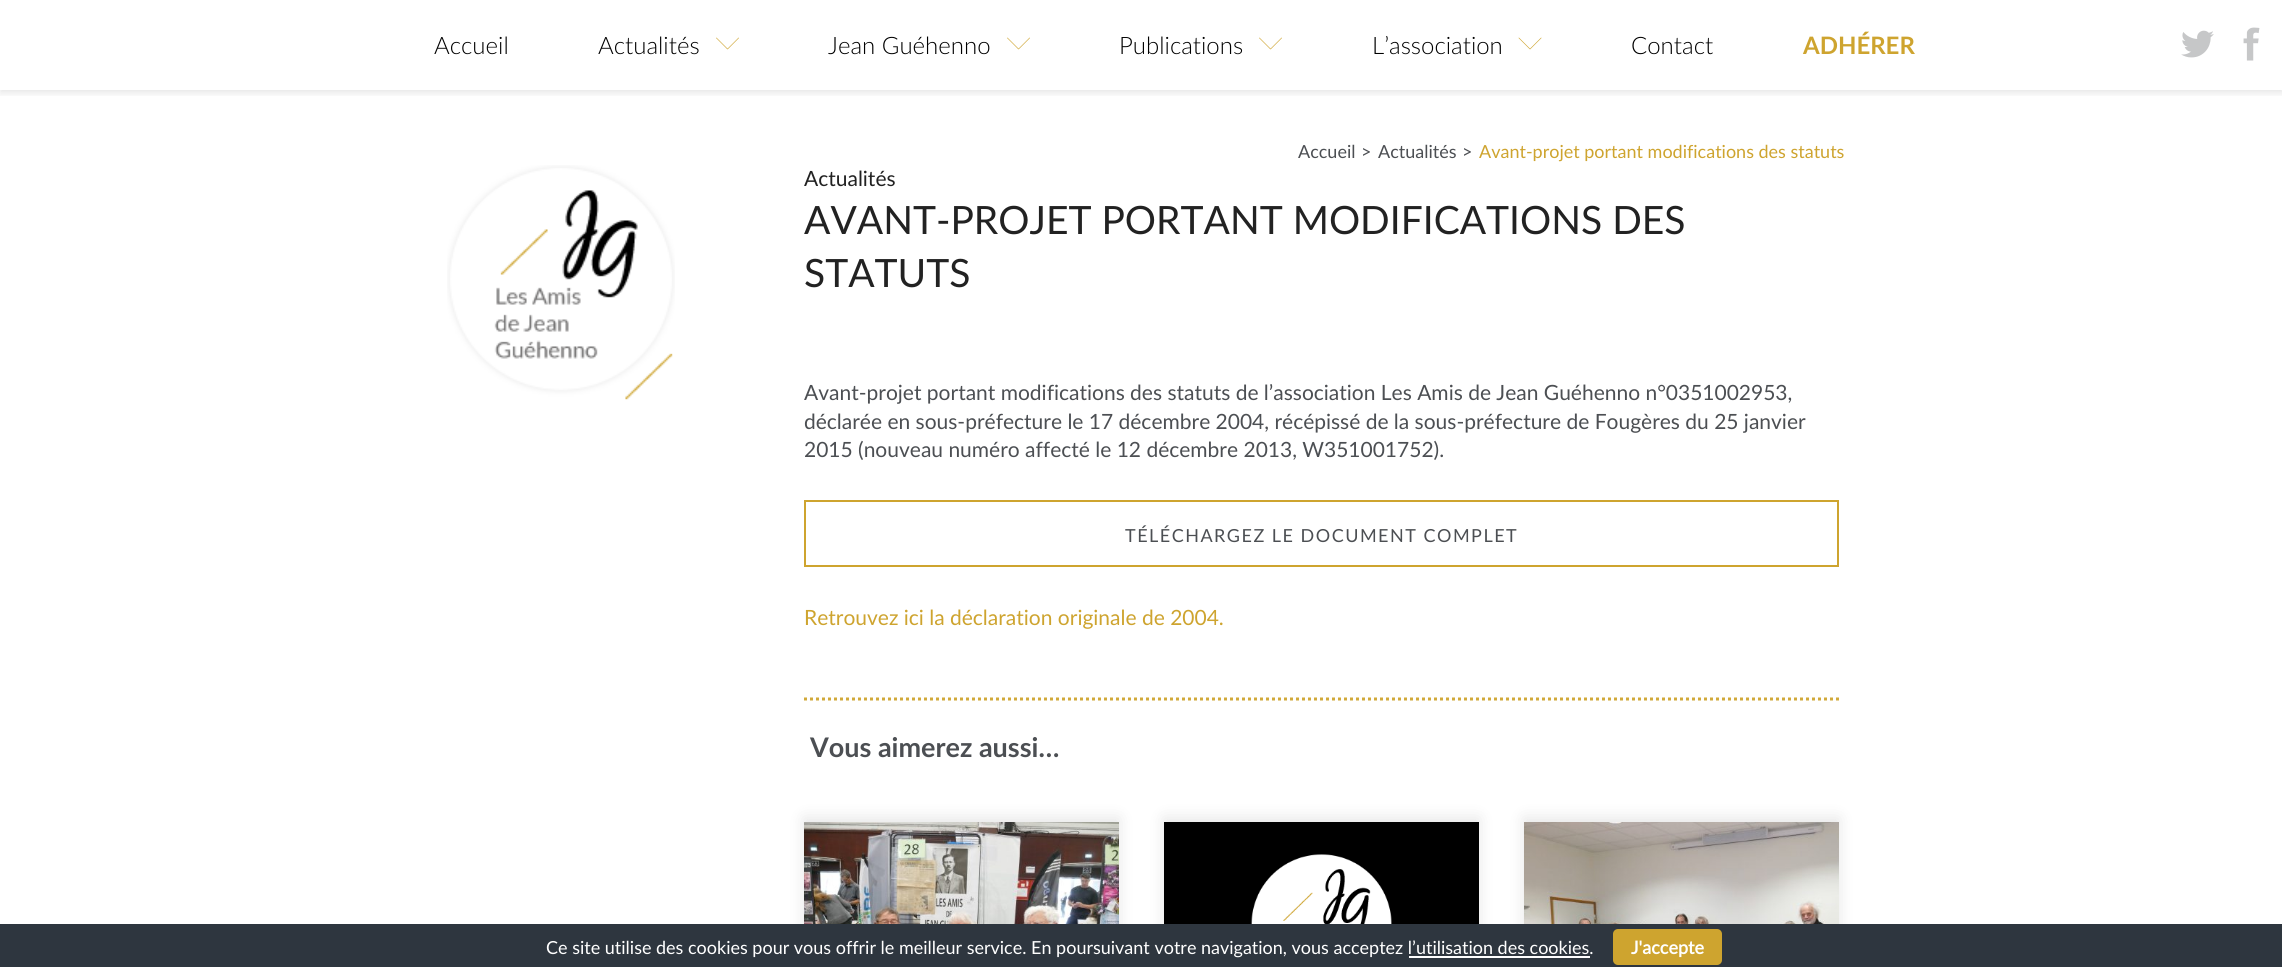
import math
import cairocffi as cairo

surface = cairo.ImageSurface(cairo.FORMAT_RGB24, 2282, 967)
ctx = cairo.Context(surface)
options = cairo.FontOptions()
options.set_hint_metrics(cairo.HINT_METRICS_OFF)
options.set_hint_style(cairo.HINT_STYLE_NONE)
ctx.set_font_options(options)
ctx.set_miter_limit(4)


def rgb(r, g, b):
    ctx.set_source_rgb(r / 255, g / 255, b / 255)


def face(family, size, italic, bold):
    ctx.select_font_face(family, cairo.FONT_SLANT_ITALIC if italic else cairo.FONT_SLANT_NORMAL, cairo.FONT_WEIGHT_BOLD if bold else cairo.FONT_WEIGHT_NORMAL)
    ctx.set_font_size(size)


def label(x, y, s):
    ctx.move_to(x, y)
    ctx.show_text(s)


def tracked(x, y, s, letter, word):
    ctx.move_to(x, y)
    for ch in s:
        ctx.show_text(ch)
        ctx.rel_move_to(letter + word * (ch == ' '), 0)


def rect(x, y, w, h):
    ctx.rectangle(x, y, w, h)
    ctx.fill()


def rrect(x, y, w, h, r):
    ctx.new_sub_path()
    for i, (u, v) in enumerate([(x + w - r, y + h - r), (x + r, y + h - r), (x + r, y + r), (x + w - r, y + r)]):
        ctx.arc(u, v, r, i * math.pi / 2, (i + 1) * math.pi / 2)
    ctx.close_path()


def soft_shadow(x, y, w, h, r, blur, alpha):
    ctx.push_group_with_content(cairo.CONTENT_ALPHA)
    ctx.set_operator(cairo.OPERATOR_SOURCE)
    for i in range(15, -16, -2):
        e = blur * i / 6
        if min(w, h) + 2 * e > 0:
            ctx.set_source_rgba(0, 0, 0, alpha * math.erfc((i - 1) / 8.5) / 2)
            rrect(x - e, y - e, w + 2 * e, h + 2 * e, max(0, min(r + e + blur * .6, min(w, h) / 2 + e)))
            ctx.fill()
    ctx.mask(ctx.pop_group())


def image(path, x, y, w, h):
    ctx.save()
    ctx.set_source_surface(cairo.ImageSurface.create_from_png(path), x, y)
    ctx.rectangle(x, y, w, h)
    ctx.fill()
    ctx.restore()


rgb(255, 255, 255)
ctx.paint()
ctx.save()
ctx.rectangle(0, 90, 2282, 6)
ctx.clip()
rgb(0, 0, 0)
soft_shadow(0, 3, 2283, 90, 0, 4, 0.1)
ctx.restore()
face('Lato Light', 24, 0, 0)
rgb(0, 0, 0)
label(434, 54, 'Accueil')
label(598, 54, 'Actualités')
image('image0.png', 716, 37, 23, 13)
label(828, 54, 'Jean Guéhenno')
image('image0.png', 1007, 37, 23, 13)
label(1119, 54, 'Publications')
image('image0.png', 1259, 37, 23, 13)
label(1372, 54, 'L’association')
image('image1.png', 1518, 37, 24, 13)
label(1631, 54, 'Contact')
face('Lato', 24, 0, 1)
rgb(206, 164, 47)
label(1803, 54, 'ADHÉRER')
image('image2.png', 2181, 30, 33, 28)
image('image3.png', 2243, 27, 17, 34)
face('Lato', 18, 0, 0)
rgb(76, 79, 83)
label(1298, 158, 'Accueil')
label(1361, 158, '>')
label(1378, 158, 'Actualités')
label(1462, 158, '>')
rgb(206, 164, 47)
label(1479, 158, 'Avant-projet portant modifications des statuts')
image('image4.png', 447, 165, 228, 235)
face('Lato', 21, 0, 0)
rgb(34, 34, 34)
label(804, 186, 'Actualités')
face('Lato', 39, 0, 0)
label(804, 234, 'AVANT-PROJET PORTANT MODIFICATIONS DES')
label(804, 287, 'STATUTS')
face('Lato', 21, 0, 0)
rgb(76, 79, 83)
label(804, 400, 'Avant-projet portant modifications des statuts de l’association Les Amis de Jean Guéhenno n°0351002953,')
label(804, 429, 'déclarée en sous-préfecture le 17 décembre 2004, récépissé de la sous-préfecture de Fougères du 25 janvier')
label(804, 457, '2015 (nouveau numéro affecté le 12 décembre 2013, W351001752).')
ctx.rectangle(805, 501, 1033, 65)
rgb(206, 164, 47)
ctx.stroke()
face('Lato', 18, 0, 0)
rgb(76, 79, 83)
tracked(1125, 542, 'TÉLÉCHARGEZ LE DOCUMENT COMPLET', 1.5, 0)
face('Lato', 21, 0, 0)
rgb(206, 164, 47)
label(804, 625, 'Retrouvez ici la déclaration originale de 2004.')
ctx.new_path()
ctx.move_to(804, 699)
ctx.line_to(1839, 699)
rgb(209, 169, 58)
ctx.set_line_width(3)
ctx.set_dash([3, 3])
ctx.stroke()
face('Lato', 27, 0, 1)
rgb(76, 79, 83)
label(810, 757, 'Vous aimerez aussi…')
rgb(0, 0, 0)
soft_shadow(804, 818, 315, 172, 0, 7.5, 0.1)
image('image5.png', 804, 822, 315, 102)
soft_shadow(1164, 818, 315, 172, 0, 7.5, 0.1)
image('image6.png', 1164, 822, 315, 102)
soft_shadow(1524, 818, 315, 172, 0, 7.5, 0.1)
image('image7.png', 1524, 822, 315, 102)
rgb(46, 54, 63)
rect(0, 924, 2282, 43)
face('Lato', 18, 0, 0)
rgb(255, 255, 255)
label(546, 954, 'Ce site utilise des cookies pour vous offrir le meilleur service. En poursuivant votre navigation, vous acceptez l’utilisation des cookies.')
rgb(206, 164, 47)
rrect(1613, 929, 109, 36, 5)
ctx.fill()
face('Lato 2', 18, 0, 1)
rgb(255, 255, 255)
label(1631, 954, 'J\'accepte')
rect(1409, 956, 181, 2)
surface.write_to_png('render.png')
